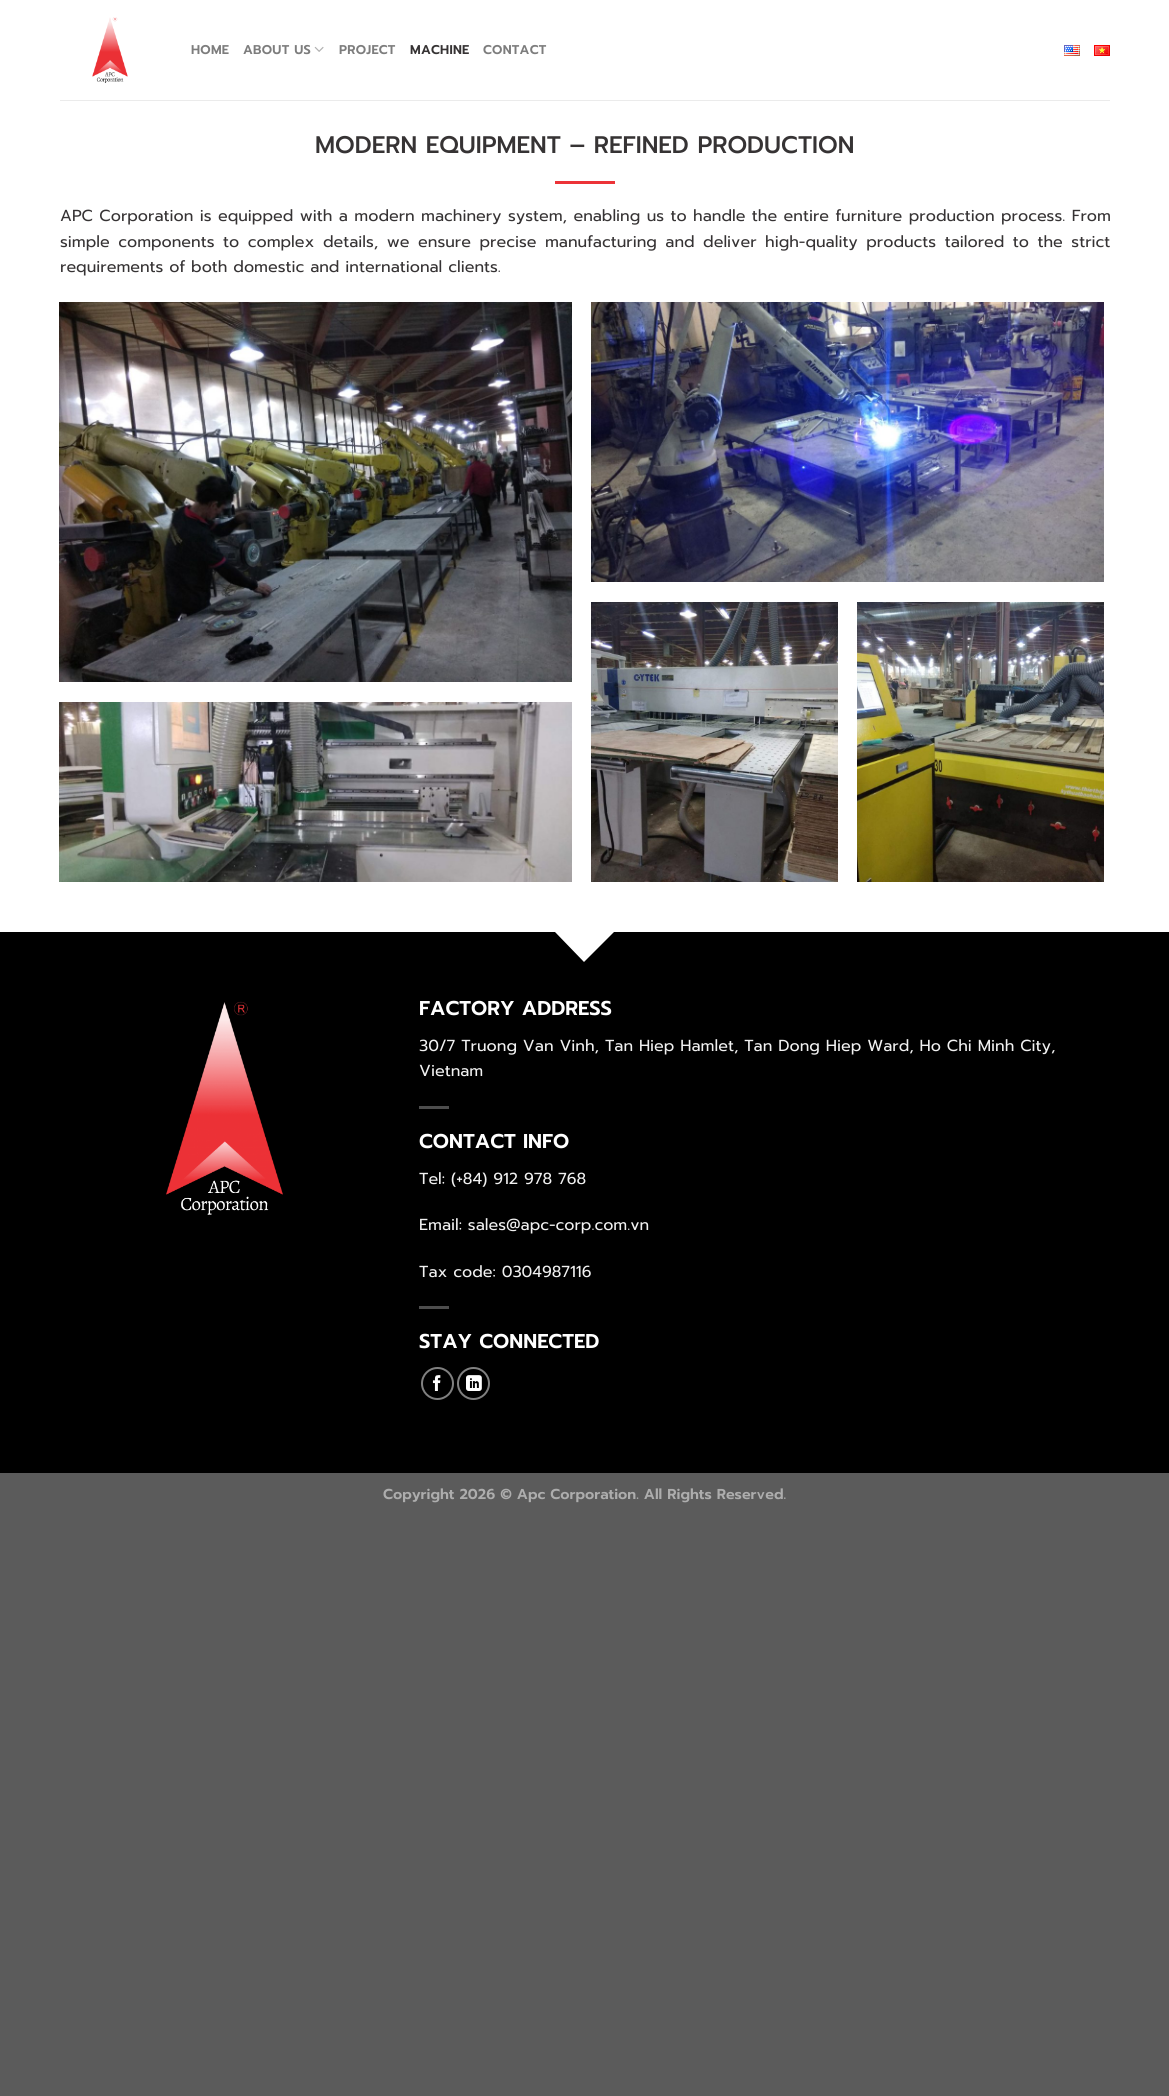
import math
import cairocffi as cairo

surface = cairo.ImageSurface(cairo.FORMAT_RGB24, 1169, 2096)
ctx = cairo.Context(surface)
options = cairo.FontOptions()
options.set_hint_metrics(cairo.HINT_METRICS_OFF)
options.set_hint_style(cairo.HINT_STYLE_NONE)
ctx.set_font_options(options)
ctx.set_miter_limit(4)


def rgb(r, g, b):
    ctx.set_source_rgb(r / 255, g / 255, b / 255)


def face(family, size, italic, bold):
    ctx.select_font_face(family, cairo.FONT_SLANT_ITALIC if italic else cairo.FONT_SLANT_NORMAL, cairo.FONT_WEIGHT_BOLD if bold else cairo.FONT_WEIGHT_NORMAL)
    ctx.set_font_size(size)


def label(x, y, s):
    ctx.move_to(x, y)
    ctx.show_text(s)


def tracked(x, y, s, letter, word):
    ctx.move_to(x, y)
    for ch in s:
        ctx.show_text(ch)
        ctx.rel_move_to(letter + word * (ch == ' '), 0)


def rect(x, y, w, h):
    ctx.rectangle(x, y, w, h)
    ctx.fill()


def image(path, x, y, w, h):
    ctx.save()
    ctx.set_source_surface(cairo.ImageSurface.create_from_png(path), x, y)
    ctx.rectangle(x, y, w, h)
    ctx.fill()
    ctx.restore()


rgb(91, 91, 91)
ctx.paint()
rgb(255, 255, 255)
rect(0, 0, 1169, 962)
image('image0.png', 92, 17, 36, 66)
face('Prompt SemiBold', 12.75, 0, 0)
rgb(125, 125, 125)
tracked(191, 54, 'HOME', 0.25, 0)
tracked(243, 54, 'ABOUT US', 0.25, 0)
image('image1.png', 314, 46, 10, 6)
tracked(339, 54, 'PROJECT', 0.25, 0)
rgb(54, 51, 52)
tracked(410, 54, 'MACHINE', 0.25, 0)
rgb(125, 125, 125)
tracked(483, 54, 'CONTACT', 0.25, 0)
image('image2.png', 1064, 45, 16, 11)
image('image3.png', 1094, 45, 16, 11)
rgb(235, 235, 235)
rect(60, 100, 1050, 1)
face('Prompt Medium', 24, 0, 0)
rgb(54, 51, 52)
label(315, 153, 'MODERN EQUIPMENT – REFINED PRODUCTION')
rgb(236, 51, 56)
rect(555, 181, 60, 3)
face('Prompt', 16, 0, 0)
rgb(54, 51, 52)
tracked(60, 221, 'APC Corporation is equipped with a modern machinery system, enabling us to handle the entire furniture production process. From', 0, 0.5)
tracked(60, 247, 'simple components to complex details, we ensure precise manufacturing and deliver high-quality products tailored to the strict', 0, 2.6)
label(60, 272, 'requirements of both domestic and international clients.')
image('image4.png', 59, 302, 513, 380)
image('image5.png', 591, 302, 513, 280)
image('image6.png', 59, 702, 513, 180)
image('image7.png', 591, 602, 247, 280)
image('image8.png', 857, 602, 247, 280)
rgb(0, 0, 0)
ctx.new_path()
ctx.move_to(0, 932)
ctx.line_to(0, 1473)
ctx.line_to(1169, 1473)
ctx.line_to(1169, 932)
ctx.line_to(614, 932)
ctx.line_to(584, 962)
ctx.line_to(555, 932)
ctx.close_path()
ctx.fill()
image('image9.png', 166, 1001, 117, 214)
face('Prompt SemiBold', 20, 0, 0)
rgb(255, 255, 255)
label(419, 1015, 'FACTORY ADDRESS')
face('Prompt', 16, 0, 0)
rgb(241, 241, 241)
label(419, 1051, '30/7 Truong Van Vinh, Tan Hiep Hamlet, Tan Dong Hiep Ward, Ho Chi Minh City,')
label(419, 1076, 'Vietnam')
rgb(77, 77, 77)
rect(419, 1106, 30, 3)
face('Prompt SemiBold', 20, 0, 0)
rgb(255, 255, 255)
label(419, 1148, 'CONTACT INFO')
face('Prompt', 16, 0, 0)
rgb(241, 241, 241)
label(419, 1184, 'Tel: (+84) 912 978 768')
label(419, 1230, 'Email: sales@apc-corp.com.vn')
label(419, 1277, 'Tax code: 0304987116')
rgb(77, 77, 77)
rect(419, 1306, 30, 3)
face('Prompt SemiBold', 20, 0, 0)
rgb(255, 255, 255)
label(419, 1348, 'STAY CONNECTED')
ctx.new_path()
ctx.arc(437.5, 1383.5, 15.5, 0, 2 * math.pi)
rgb(128, 128, 128)
ctx.stroke()
image('image10.png', 432, 1375, 9, 16)
ctx.arc(473.5, 1383.5, 15.5, 0, 2 * math.pi)
ctx.stroke()
image('image11.png', 466, 1375, 16, 16)
face('Prompt SemiBold', 14.4, 0, 0)
rgb(173, 173, 173)
label(383, 1499, 'Copyright 2026 © Apc Corporation. All Rights Reserved.')
surface.write_to_png('render.png')
